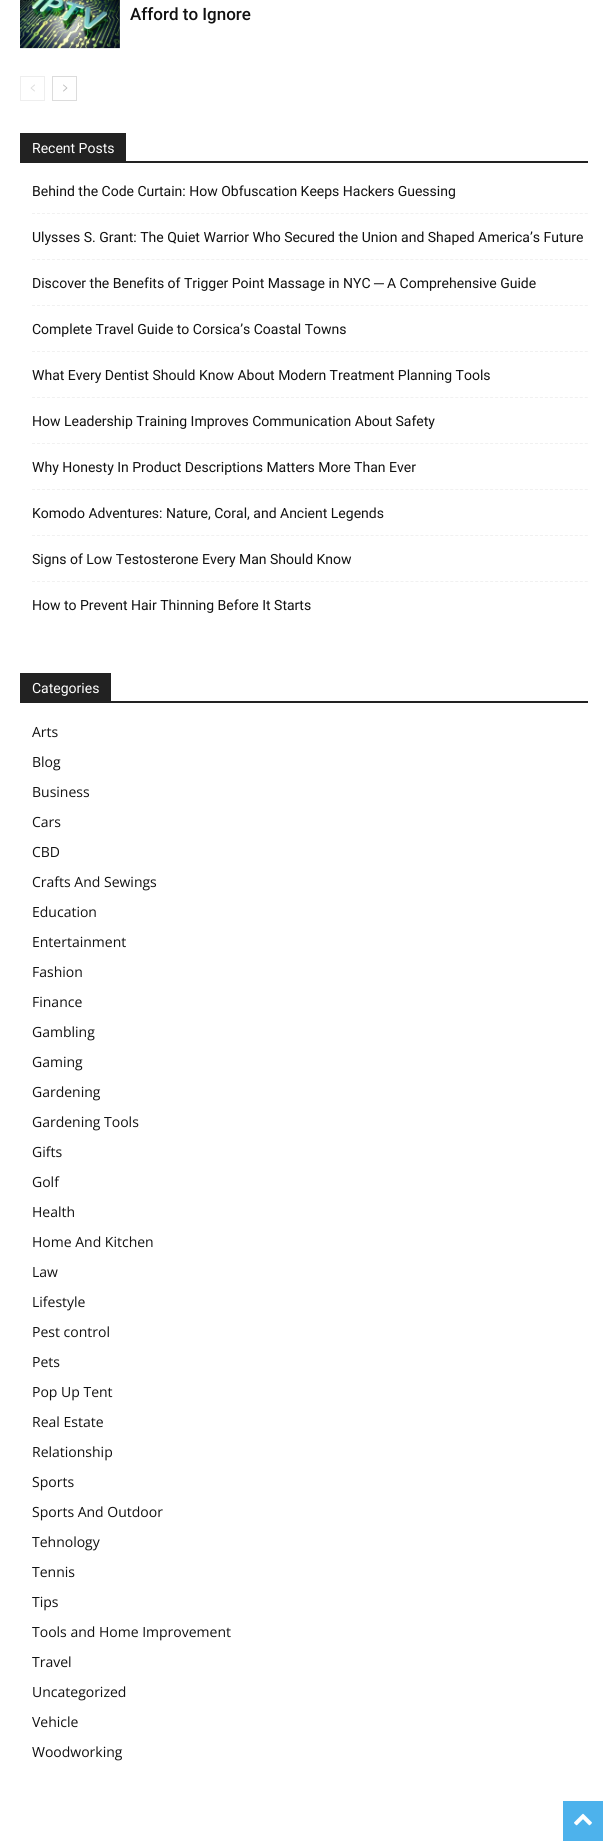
import math
import cairocffi as cairo

surface = cairo.ImageSurface(cairo.FORMAT_RGB24, 608, 1845)
ctx = cairo.Context(surface)
options = cairo.FontOptions()
options.set_hint_metrics(cairo.HINT_METRICS_OFF)
options.set_hint_style(cairo.HINT_STYLE_NONE)
ctx.set_font_options(options)
ctx.set_miter_limit(4)


def rgb(r, g, b):
    ctx.set_source_rgb(r / 255, g / 255, b / 255)


def face(family, size, italic, bold):
    ctx.select_font_face(family, cairo.FONT_SLANT_ITALIC if italic else cairo.FONT_SLANT_NORMAL, cairo.FONT_WEIGHT_BOLD if bold else cairo.FONT_WEIGHT_NORMAL)
    ctx.set_font_size(size)


def label(x, y, s):
    ctx.move_to(x, y)
    ctx.show_text(s)


def rect(x, y, w, h):
    ctx.rectangle(x, y, w, h)
    ctx.fill()


def image(path, x, y, w, h):
    ctx.save()
    ctx.set_source_surface(cairo.ImageSurface.create_from_png(path), x, y)
    ctx.rectangle(x, y, w, h)
    ctx.fill()
    ctx.restore()


rgb(255, 255, 255)
ctx.paint()
image('image0.png', 20, 0, 100, 49)
face('Roboto Medium', 17, 0, 0)
rgb(17, 17, 17)
label(130, 20, 'Afford to Ignore')
ctx.rectangle(20.5, 76.5, 24, 24)
rgb(238, 238, 238)
ctx.set_line_width(1)
ctx.stroke()
image('image1.png', 30, 84, 5, 8)
ctx.rectangle(52.5, 76.5, 24, 24)
rgb(220, 220, 220)
ctx.stroke()
image('image2.png', 63, 84, 5, 8)
rgb(34, 34, 34)
rect(20, 161, 568, 2)
rect(20, 133, 106, 28)
face('Roboto', 14, 0, 0)
rgb(255, 255, 255)
label(32, 153, 'Recent Posts')
ctx.new_path()
ctx.move_to(32, 213.5)
ctx.line_to(588, 213.5)
rgb(241, 241, 241)
ctx.set_dash([3, 1.98])
ctx.stroke()
rgb(17, 17, 17)
label(32, 196, 'Behind the Code Curtain: How Obfuscation Keeps Hackers Guessing')
ctx.new_path()
ctx.move_to(32, 259.5)
ctx.line_to(588, 259.5)
rgb(241, 241, 241)
ctx.stroke()
rgb(17, 17, 17)
label(32, 242, 'Ulysses S. Grant: The Quiet Warrior Who Secured the Union and Shaped America’s Future')
ctx.new_path()
ctx.move_to(32, 305.5)
ctx.line_to(588, 305.5)
rgb(241, 241, 241)
ctx.stroke()
rgb(17, 17, 17)
label(32, 288, 'Discover the Benefits of Trigger Point Massage in NYC')
face('Liberation Sans', 14, 0, 0)
label(374, 288, '─')
face('Roboto', 14, 0, 0)
label(387, 288, 'A Comprehensive Guide')
ctx.new_path()
ctx.move_to(32, 351.5)
ctx.line_to(588, 351.5)
rgb(241, 241, 241)
ctx.stroke()
rgb(17, 17, 17)
label(32, 334, 'Complete Travel Guide to Corsica’s Coastal Towns')
ctx.new_path()
ctx.move_to(32, 397.5)
ctx.line_to(588, 397.5)
rgb(241, 241, 241)
ctx.stroke()
rgb(17, 17, 17)
label(32, 380, 'What Every Dentist Should Know About Modern Treatment Planning Tools')
ctx.new_path()
ctx.move_to(32, 443.5)
ctx.line_to(588, 443.5)
rgb(241, 241, 241)
ctx.stroke()
rgb(17, 17, 17)
label(32, 426, 'How Leadership Training Improves Communication About Safety')
ctx.new_path()
ctx.move_to(32, 489.5)
ctx.line_to(588, 489.5)
rgb(241, 241, 241)
ctx.stroke()
rgb(17, 17, 17)
label(32, 472, 'Why Honesty In Product Descriptions Matters More Than Ever')
ctx.new_path()
ctx.move_to(32, 535.5)
ctx.line_to(588, 535.5)
rgb(241, 241, 241)
ctx.stroke()
rgb(17, 17, 17)
label(32, 518, 'Komodo Adventures: Nature, Coral, and Ancient Legends')
ctx.new_path()
ctx.move_to(32, 581.5)
ctx.line_to(588, 581.5)
rgb(241, 241, 241)
ctx.stroke()
rgb(17, 17, 17)
label(32, 564, 'Signs of Low Testosterone Every Man Should Know')
label(32, 610, 'How to Prevent Hair Thinning Before It Starts')
rgb(34, 34, 34)
rect(20, 701, 568, 2)
rect(20, 673, 91, 28)
rgb(255, 255, 255)
label(32, 693, 'Categories')
face('Open Sans', 14, 0, 0)
rgb(17, 17, 17)
label(32, 737, 'Arts')
label(32, 767, 'Blog')
label(32, 797, 'Business')
label(32, 827, 'Cars')
label(32, 857, 'CBD')
label(32, 887, 'Crafts And Sewings')
label(32, 917, 'Education')
label(32, 947, 'Entertainment')
label(32, 977, 'Fashion')
label(32, 1007, 'Finance')
label(32, 1037, 'Gambling')
label(32, 1067, 'Gaming')
label(32, 1097, 'Gardening')
label(32, 1127, 'Gardening Tools')
label(32, 1157, 'Gifts')
label(32, 1187, 'Golf')
label(32, 1217, 'Health')
label(32, 1247, 'Home And Kitchen')
label(32, 1277, 'Law')
label(32, 1307, 'Lifestyle')
label(32, 1337, 'Pest control')
label(32, 1367, 'Pets')
label(32, 1397, 'Pop Up Tent')
label(32, 1427, 'Real Estate')
label(32, 1457, 'Relationship')
label(32, 1487, 'Sports')
label(32, 1517, 'Sports And Outdoor')
label(32, 1547, 'Tehnology')
label(32, 1577, 'Tennis')
label(32, 1607, 'Tips')
label(32, 1637, 'Tools and Home Improvement')
label(32, 1667, 'Travel')
label(32, 1697, 'Uncategorized')
label(32, 1727, 'Vehicle')
label(32, 1757, 'Woodworking')
rgb(77, 178, 236)
rect(563, 1801, 40, 40)
image('image3.png', 574, 1813, 18, 13)
surface.write_to_png('render.png')
